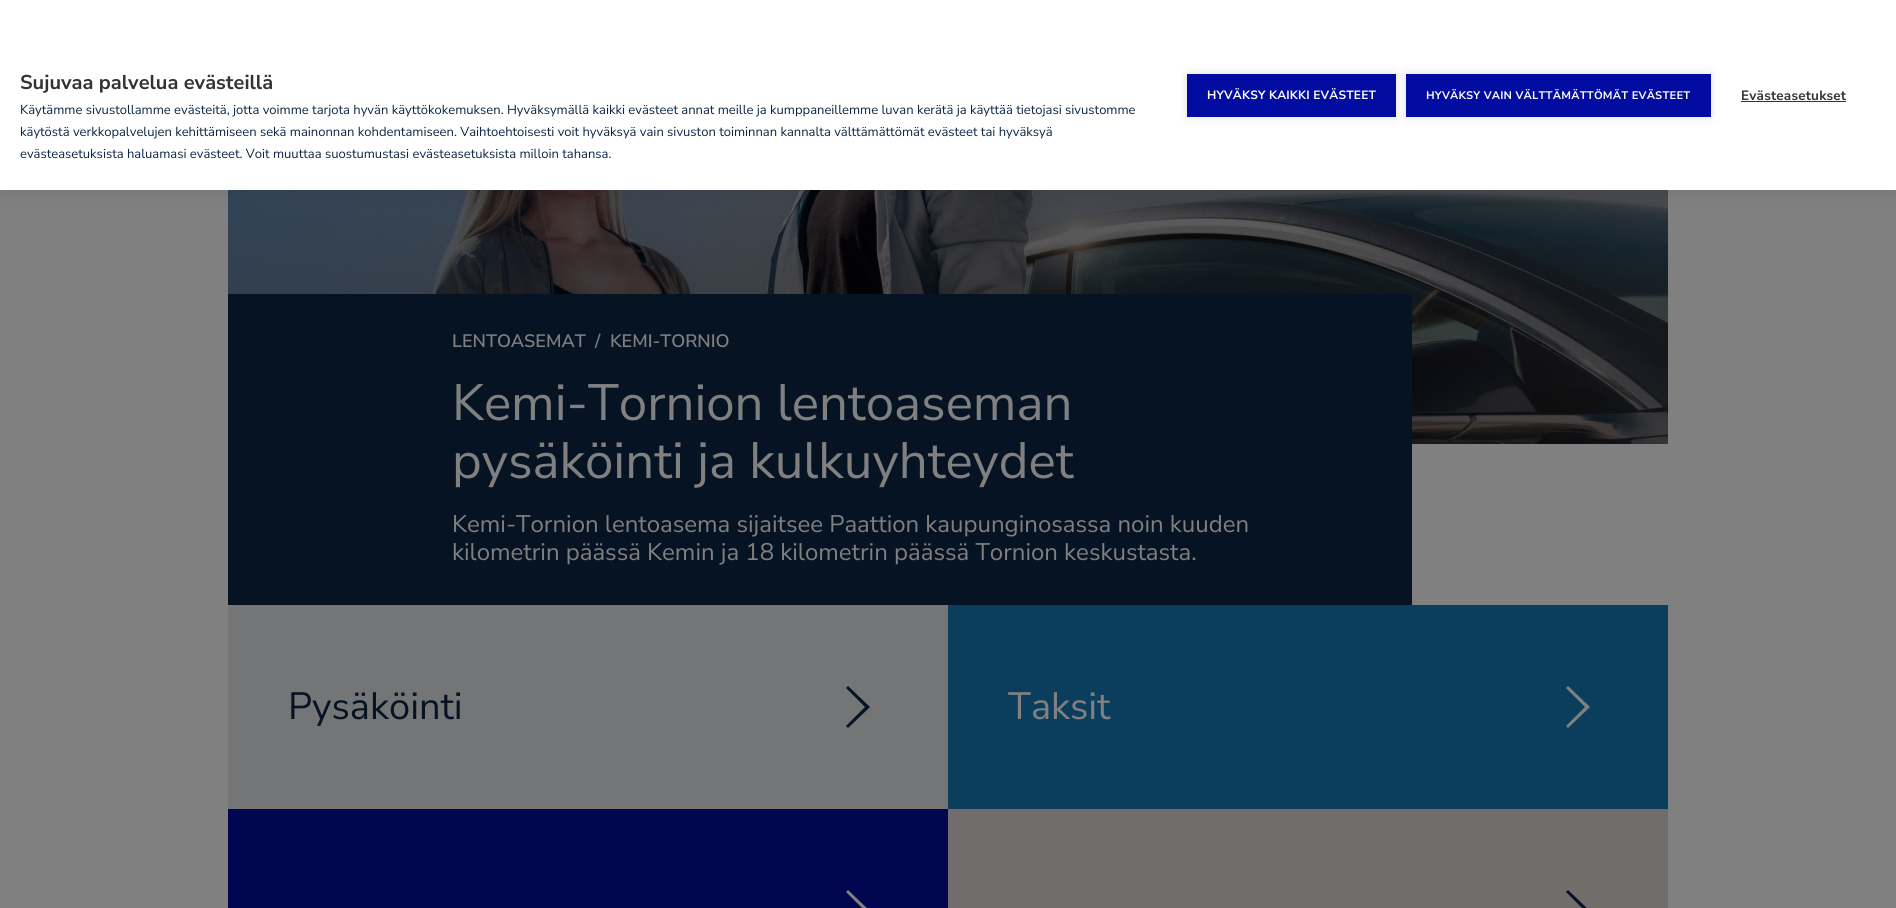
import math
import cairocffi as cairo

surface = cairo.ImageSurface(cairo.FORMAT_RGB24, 1896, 908)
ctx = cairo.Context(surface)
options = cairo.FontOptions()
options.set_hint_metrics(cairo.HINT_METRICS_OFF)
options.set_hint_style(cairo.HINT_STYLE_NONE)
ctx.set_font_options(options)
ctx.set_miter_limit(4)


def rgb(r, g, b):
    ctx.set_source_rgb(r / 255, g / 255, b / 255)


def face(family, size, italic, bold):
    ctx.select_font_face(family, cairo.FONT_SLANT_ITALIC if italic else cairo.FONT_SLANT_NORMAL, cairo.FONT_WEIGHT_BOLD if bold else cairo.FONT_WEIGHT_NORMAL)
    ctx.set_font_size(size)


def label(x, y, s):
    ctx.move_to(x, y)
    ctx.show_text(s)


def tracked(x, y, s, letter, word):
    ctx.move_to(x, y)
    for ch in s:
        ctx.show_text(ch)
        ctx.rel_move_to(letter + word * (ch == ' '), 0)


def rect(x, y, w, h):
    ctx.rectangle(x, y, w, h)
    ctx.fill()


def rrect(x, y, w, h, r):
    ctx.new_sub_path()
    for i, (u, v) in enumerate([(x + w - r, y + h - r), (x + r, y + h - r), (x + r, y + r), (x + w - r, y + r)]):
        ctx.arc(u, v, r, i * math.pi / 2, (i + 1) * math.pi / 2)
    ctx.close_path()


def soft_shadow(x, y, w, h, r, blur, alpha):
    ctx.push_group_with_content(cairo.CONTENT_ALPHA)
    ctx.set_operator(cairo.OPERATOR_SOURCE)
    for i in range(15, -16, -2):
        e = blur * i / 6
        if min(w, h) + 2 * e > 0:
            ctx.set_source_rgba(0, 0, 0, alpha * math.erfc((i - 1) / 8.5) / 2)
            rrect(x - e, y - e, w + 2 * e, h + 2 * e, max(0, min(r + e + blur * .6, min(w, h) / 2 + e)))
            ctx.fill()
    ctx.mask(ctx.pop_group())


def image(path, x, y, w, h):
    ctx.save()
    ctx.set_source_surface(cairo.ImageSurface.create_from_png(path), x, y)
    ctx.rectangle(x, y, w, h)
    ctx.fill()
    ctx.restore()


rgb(128, 128, 128)
ctx.paint()
image('image0.png', 228, 190, 1440, 254)
rgb(0, 0, 0)
soft_shadow(0, 0, 1896, 190, 0, 10, 0.1)
rgb(255, 255, 255)
rect(0, 0, 1896, 190)
face('Nunito Sans', 20, 0, 1)
rgb(51, 51, 51)
label(20, 89, 'Sujuvaa palvelua evästeillä')
face('Nunito Sans', 13, 0, 0)
rgb(12, 38, 69)
label(20, 114, 'Käytämme sivustollamme evästeitä, jotta voimme tarjota hyvän käyttökokemuksen. Hyväksymällä kaikki evästeet annat meille ja kumppaneillemme luvan kerätä ja käyttää tietojasi sivustomme')
label(20, 136, 'käytöstä verkkopalvelujen kehittämiseen sekä mainonnan kohdentamiseen. Vaihtoehtoisesti voit hyväksyä vain sivuston toiminnan kannalta välttämättömät evästeet tai hyväksyä')
label(20, 158, 'evästeasetuksista haluamasi evästeet. Voit muuttaa suostumustasi evästeasetuksista milloin tahansa.')
rgb(0, 0, 0)
soft_shadow(1187, 74, 209, 43, 0, 5, 0.12)
rgb(2, 12, 160)
rect(1187, 74, 209, 43)
face('Nunito Sans', 12, 0, 1)
rgb(255, 255, 255)
tracked(1207, 99, 'HYVÄKSY KAIKKI EVÄSTEET', 0.2, 0)
rgb(0, 0, 0)
soft_shadow(1406, 74, 305, 43, 0, 5, 0.12)
rgb(2, 12, 160)
rect(1406, 74, 305, 43)
face('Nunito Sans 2', 11, 0, 1)
rgb(255, 255, 255)
tracked(1426, 99, 'HYVÄKSY VAIN VÄLTTÄMÄTTÖMÄT EVÄSTEET', 0.2, 0)
face('Nunito Sans', 13.5, 0, 1)
rgb(51, 51, 51)
tracked(1741, 100, 'Evästeasetukset', 0.2, 0)
rect(1741, 101, 105, 1)
rgb(6, 19, 35)
rect(228, 294, 1184, 311)
face('Nunito Sans SemiBold', 18, 0, 0)
rgb(128, 128, 128)
label(452, 347, 'LENTOASEMAT')
label(595, 347, '/')
label(610, 347, 'KEMI-TORNIO')
face('Nunito Sans', 51, 0, 0)
label(452, 420, 'Kemi-Tornion lentoaseman')
label(452, 478, 'pysäköinti ja kulkuyhteydet')
face('Nunito Sans', 24, 0, 0)
label(452, 532, 'Kemi-Tornion lentoasema sijaitsee Paattion kaupunginosassa noin kuuden')
label(452, 560, 'kilometrin päässä Kemin ja 18 kilometrin päässä Tornion keskustasta.')
rgb(115, 117, 118)
rect(228, 605, 720, 204)
rgb(6, 19, 35)
ctx.new_path()
ctx.move_to(846, 726)
ctx.line_to(848, 728)
ctx.line_to(870, 707)
ctx.line_to(848, 686)
ctx.line_to(846, 688)
ctx.line_to(865, 707)
ctx.close_path()
ctx.fill()
face('Nunito Sans', 38, 0, 0)
label(288, 719, 'Pysäköinti')
rgb(11, 62, 93)
rect(948, 605, 720, 204)
rgb(128, 128, 128)
ctx.new_path()
ctx.move_to(1566, 726)
ctx.line_to(1568, 728)
ctx.line_to(1590, 707)
ctx.line_to(1568, 686)
ctx.line_to(1566, 688)
ctx.line_to(1585, 707)
ctx.close_path()
ctx.fill()
label(1008, 719, 'Taksit')
rgb(1, 6, 80)
rect(228, 809, 720, 99)
rgb(128, 128, 128)
ctx.new_path()
ctx.move_to(846, 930)
ctx.line_to(848, 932)
ctx.line_to(870, 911)
ctx.line_to(848, 890)
ctx.line_to(846, 892)
ctx.line_to(865, 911)
ctx.close_path()
ctx.fill()
rgb(113, 109, 106)
rect(948, 809, 720, 99)
rgb(6, 19, 35)
ctx.new_path()
ctx.move_to(1566, 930)
ctx.line_to(1568, 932)
ctx.line_to(1590, 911)
ctx.line_to(1568, 890)
ctx.line_to(1566, 892)
ctx.line_to(1585, 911)
ctx.close_path()
ctx.fill()
surface.write_to_png('render.png')
